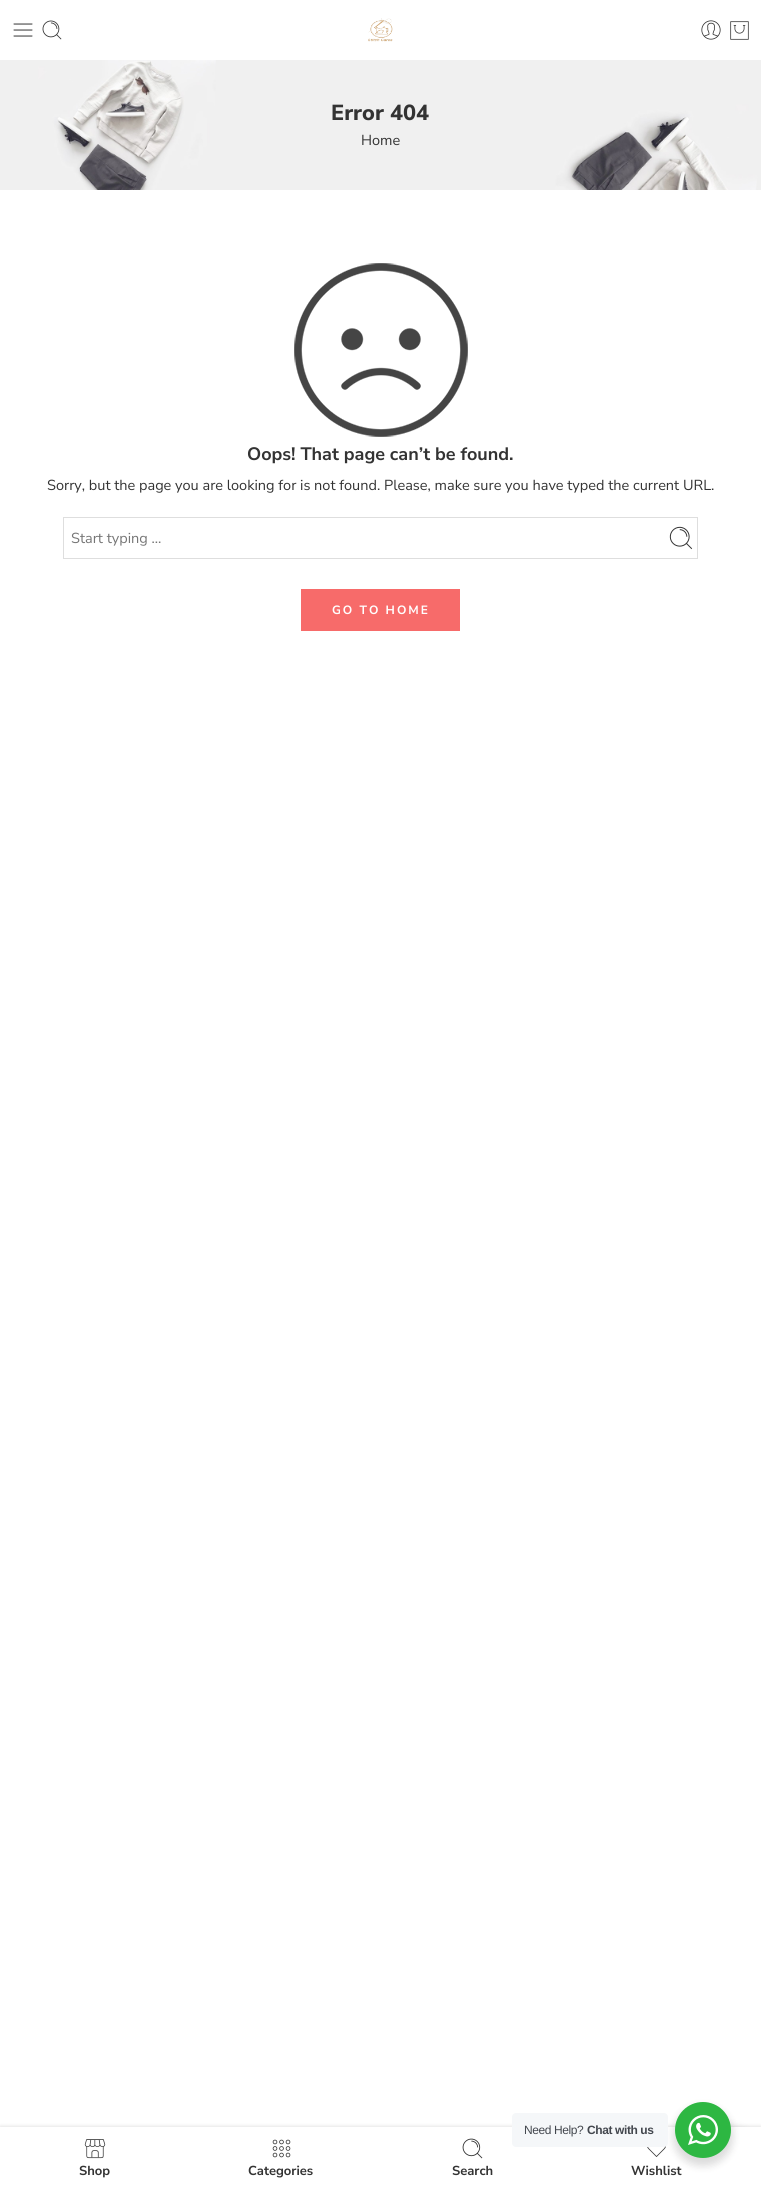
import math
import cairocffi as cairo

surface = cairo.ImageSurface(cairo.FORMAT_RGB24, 761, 2188)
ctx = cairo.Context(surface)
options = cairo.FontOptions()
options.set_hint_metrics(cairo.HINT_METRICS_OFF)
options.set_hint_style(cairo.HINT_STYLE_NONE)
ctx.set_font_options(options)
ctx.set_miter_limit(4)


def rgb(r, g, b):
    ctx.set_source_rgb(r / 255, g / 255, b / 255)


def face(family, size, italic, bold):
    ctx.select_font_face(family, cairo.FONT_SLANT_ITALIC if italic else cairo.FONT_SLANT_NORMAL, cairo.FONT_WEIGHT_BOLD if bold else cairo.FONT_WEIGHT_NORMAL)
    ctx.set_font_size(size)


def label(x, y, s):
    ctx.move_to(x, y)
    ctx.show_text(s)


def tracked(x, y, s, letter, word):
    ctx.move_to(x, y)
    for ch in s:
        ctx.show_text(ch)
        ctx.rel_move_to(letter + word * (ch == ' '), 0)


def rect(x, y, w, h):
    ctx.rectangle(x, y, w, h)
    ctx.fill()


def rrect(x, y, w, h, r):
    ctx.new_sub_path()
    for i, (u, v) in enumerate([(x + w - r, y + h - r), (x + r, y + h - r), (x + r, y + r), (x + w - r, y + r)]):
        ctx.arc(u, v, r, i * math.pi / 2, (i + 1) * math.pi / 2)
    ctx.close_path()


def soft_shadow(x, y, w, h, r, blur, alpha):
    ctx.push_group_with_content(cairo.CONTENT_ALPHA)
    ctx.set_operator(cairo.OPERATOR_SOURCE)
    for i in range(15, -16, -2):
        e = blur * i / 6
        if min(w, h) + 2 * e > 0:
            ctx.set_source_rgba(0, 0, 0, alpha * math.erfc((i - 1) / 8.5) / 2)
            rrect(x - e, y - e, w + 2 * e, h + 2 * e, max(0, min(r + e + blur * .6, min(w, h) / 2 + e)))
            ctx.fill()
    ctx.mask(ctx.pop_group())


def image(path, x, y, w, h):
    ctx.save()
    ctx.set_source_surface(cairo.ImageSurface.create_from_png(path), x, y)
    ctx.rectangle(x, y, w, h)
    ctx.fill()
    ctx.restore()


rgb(255, 255, 255)
ctx.paint()
image('image0.png', 13, 23, 20, 14)
image('image1.png', 42, 20, 20, 20)
image('image2.png', 368, 18, 25, 24)
image('image3.png', 701, 20, 20, 20)
image('image4.png', 730, 21, 19, 19)
image('image5.png', 0, 60, 761, 130)
face('Nunito Sans ExtraBold', 21.75, 0, 0)
rgb(51, 51, 51)
label(331, 120, 'Error 404')
face('Nunito Sans', 14.5, 0, 0)
label(361, 145, 'Home')
image('image6.png', 294, 263, 174, 174)
face('Nunito Sans', 18, 0, 1)
label(247, 460, 'Oops! That page can’t be found.')
face('Nunito Sans', 14.5, 0, 0)
label(47, 490, 'Sorry, but the page you are looking for is not found. Please, make sure you have typed the current URL.')
ctx.rectangle(63.5, 517.5, 634, 41)
rgb(222, 222, 222)
ctx.set_line_width(1)
ctx.stroke()
rgb(117, 117, 117)
label(71, 543, 'Start typing ...')
image('image7.png', 669, 526, 24, 24)
rgb(247, 107, 106)
rect(301, 589, 159, 42)
face('Nunito Sans', 12, 0, 1)
rgb(255, 255, 255)
tracked(332, 614, 'GO TO HOME', 2, 0)
rgb(0, 0, 0)
soft_shadow(706, 2128, 47, 47, 23.5, 5, 0.1)
soft_shadow(0, 2126, 761, 61, 0, 1.5, 0.1)
rgb(255, 255, 255)
rect(0, 2127, 761, 61)
image('image12.png', 647, 2145, 20, 12)
rgb(0, 0, 0)
soft_shadow(673, 2106, 60, 60, 30, 4, 0.14)
rgb(245, 247, 249)
rrect(512, 2113, 156, 34, 4)
ctx.fill()
face('Liberation Sans', 12, 0, 0)
rgb(67, 71, 78)
tracked(524, 2134, 'Need Help?', -0.4, 0)
face('Liberation Sans', 12, 0, 1)
tracked(587, 2134, 'Chat with us', -0.4, 0)
rgb(45, 183, 66)
ctx.new_path()
ctx.arc(703, 2130, 28, 0, 2 * math.pi)
ctx.fill()
image('image8.png', 688, 2115, 30, 30)
image('image9.png', 84, 2139, 22, 20)
face('Nunito Sans', 13, 0, 1)
rgb(51, 51, 51)
label(79, 2175, 'Shop')
image('image10.png', 272, 2139, 19, 19)
label(248, 2175, 'Categories')
image('image11.png', 462, 2138, 21, 21)
label(452, 2175, 'Search')
label(631, 2175, 'Wishlist')
surface.write_to_png('render.png')
